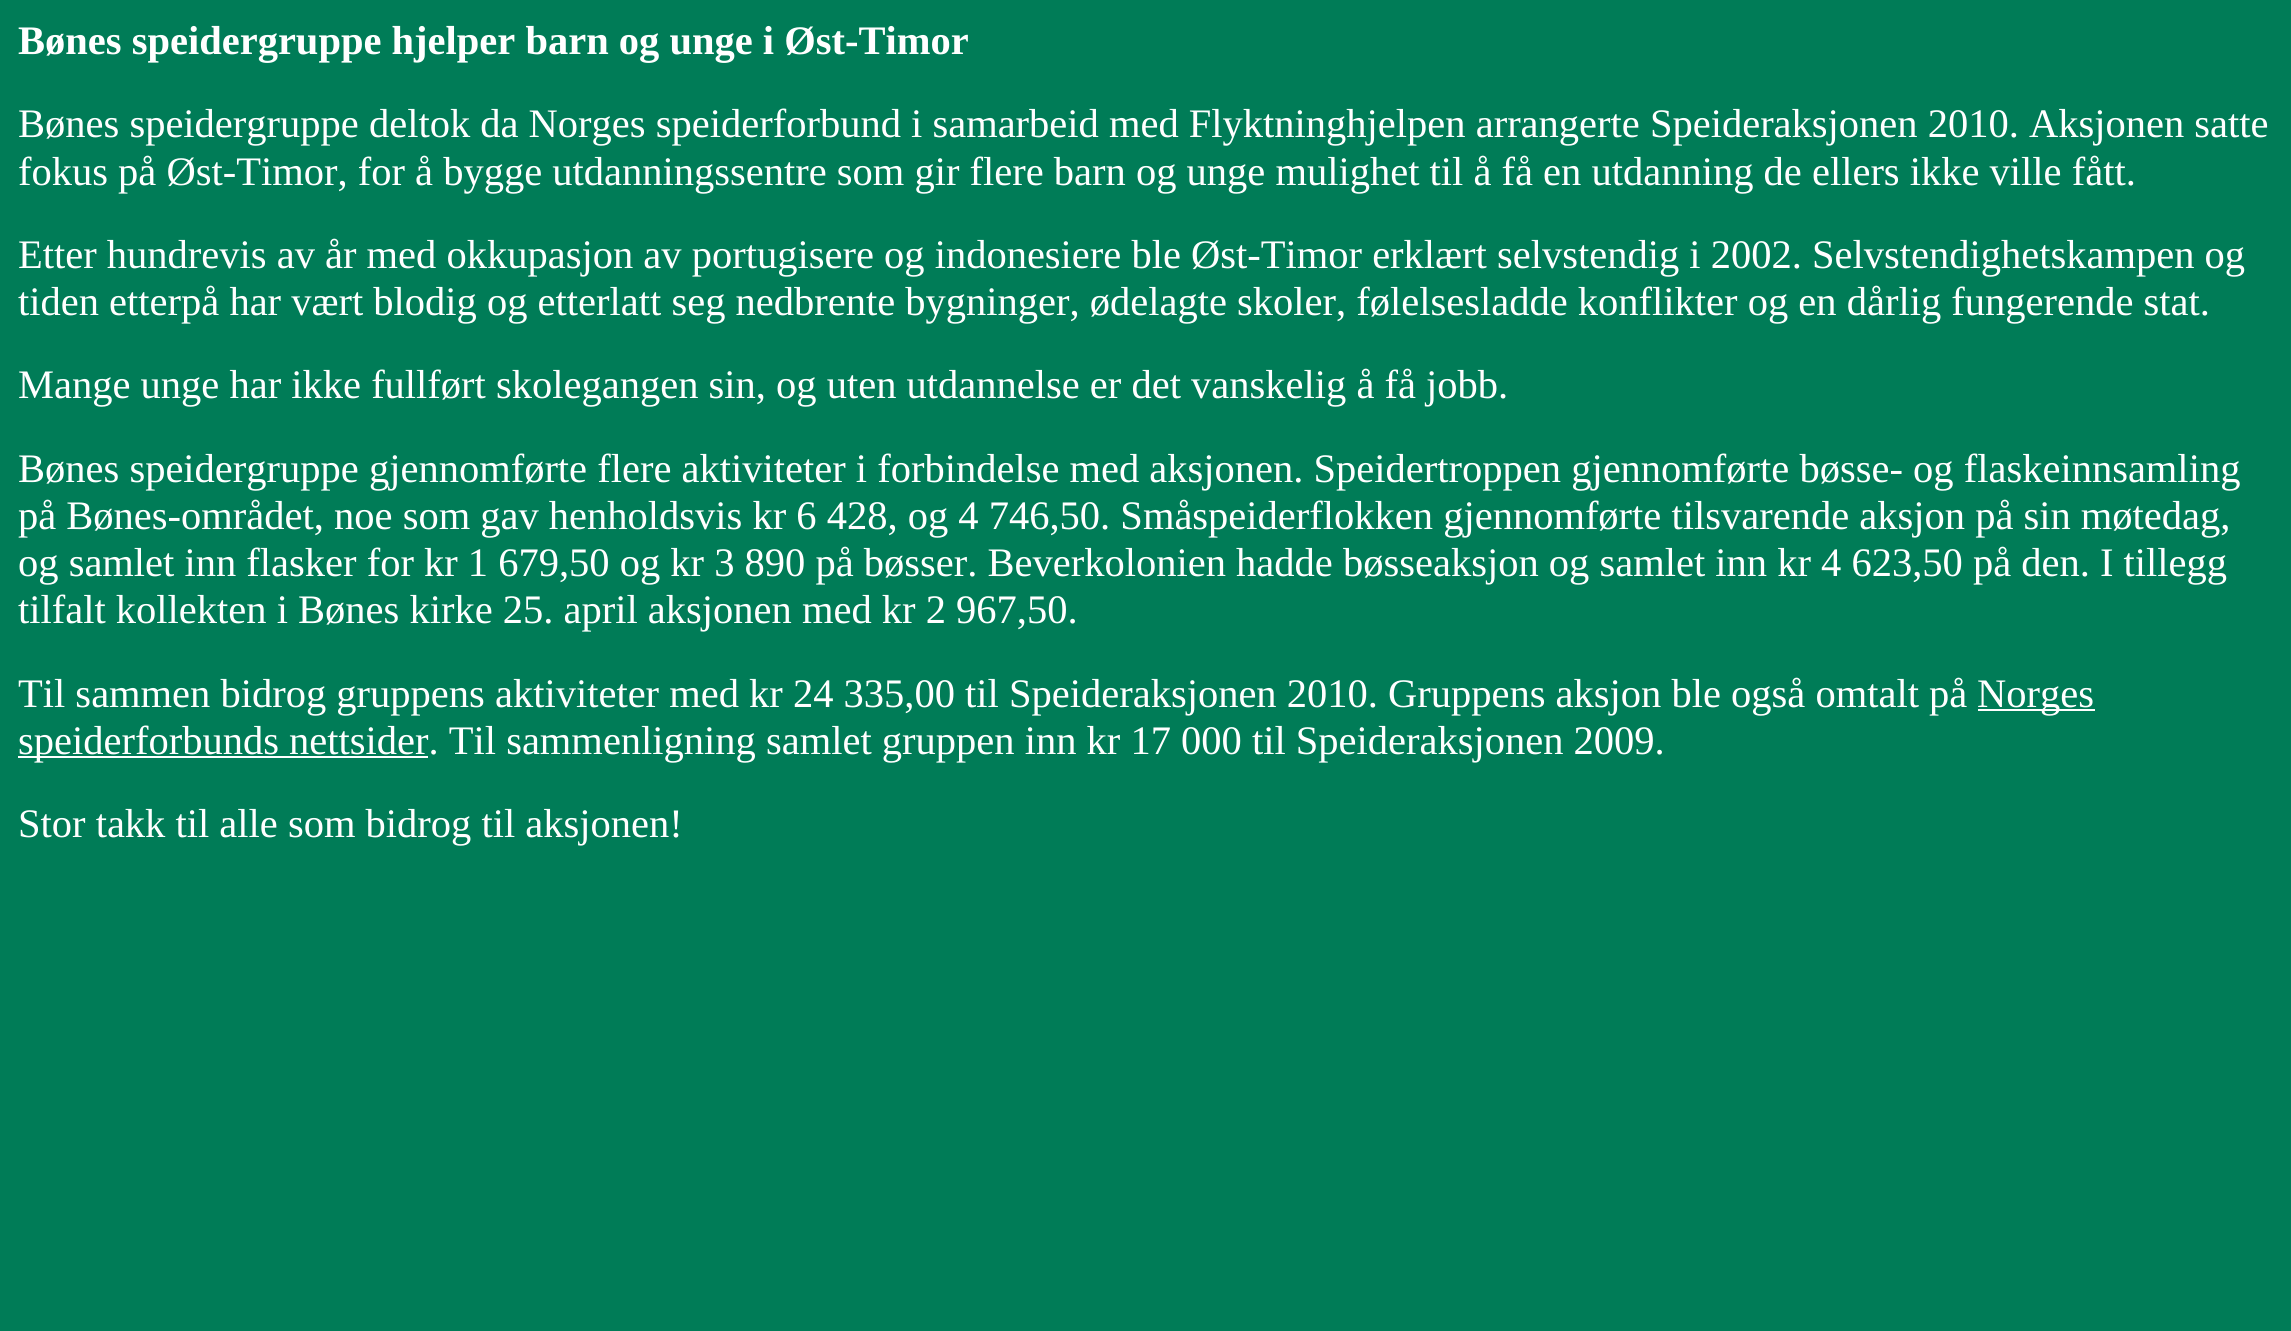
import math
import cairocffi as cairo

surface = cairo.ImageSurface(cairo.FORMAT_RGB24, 2291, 1331)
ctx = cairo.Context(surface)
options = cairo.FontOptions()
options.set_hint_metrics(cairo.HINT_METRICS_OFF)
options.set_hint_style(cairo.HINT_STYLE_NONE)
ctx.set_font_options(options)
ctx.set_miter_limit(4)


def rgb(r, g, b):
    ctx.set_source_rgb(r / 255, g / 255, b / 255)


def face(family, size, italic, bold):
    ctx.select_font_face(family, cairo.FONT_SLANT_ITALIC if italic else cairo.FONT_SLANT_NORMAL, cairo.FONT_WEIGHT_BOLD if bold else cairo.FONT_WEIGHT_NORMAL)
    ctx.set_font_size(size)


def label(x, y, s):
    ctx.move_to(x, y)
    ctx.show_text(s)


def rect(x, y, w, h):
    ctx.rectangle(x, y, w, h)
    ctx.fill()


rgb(0, 124, 87)
ctx.paint()
face('Liberation Serif', 40.5, 0, 1)
rgb(255, 255, 255)
label(18, 54, 'Bønes speidergruppe hjelper barn og unge i Øst-Timor')
face('Liberation Serif', 40.5, 0, 0)
label(18, 137, 'Bønes speidergruppe deltok da Norges speiderforbund i samarbeid med Flyktninghjelpen arrangerte Speideraksjonen 2010. Aksjonen satte')
label(18, 185, 'fokus på Øst-Timor, for å bygge utdanningssentre som gir flere barn og unge mulighet til å få en utdanning de ellers ikke ville fått.')
label(18, 268, 'Etter hundrevis av år med okkupasjon av portugisere og indonesiere ble Øst-Timor erklært selvstendig i 2002. Selvstendighetskampen og')
label(18, 315, 'tiden etterpå har vært blodig og etterlatt seg nedbrente bygninger, ødelagte skoler, følelsesladde konflikter og en dårlig fungerende stat.')
label(18, 398, 'Mange unge har ikke fullført skolegangen sin, og uten utdannelse er det vanskelig å få jobb.')
label(18, 482, 'Bønes speidergruppe gjennomførte flere aktiviteter i forbindelse med aksjonen. Speidertroppen gjennomførte bøsse- og flaskeinnsamling')
label(18, 529, 'på Bønes-området, noe som gav henholdsvis kr 6 428, og 4 746,50. Småspeiderflokken gjennomførte tilsvarende aksjon på sin møtedag,')
label(18, 576, 'og samlet inn flasker for kr 1 679,50 og kr 3 890 på bøsser. Beverkolonien hadde bøsseaksjon og samlet inn kr 4 623,50 på den. I tillegg')
label(18, 623, 'tilfalt kollekten i Bønes kirke 25. april aksjonen med kr 2 967,50.')
label(18, 707, 'Til sammen bidrog gruppens aktiviteter med kr 24 335,00 til Speideraksjonen 2010. Gruppens aksjon ble også omtalt på')
rect(1978, 709, 117, 2)
label(1977, 707, 'Norges')
rect(18, 756, 410, 2)
label(18, 754, 'speiderforbunds nettsider. Til sammenligning samlet gruppen inn kr 17 000 til Speideraksjonen 2009.')
label(18, 837, 'Stor takk til alle som bidrog til aksjonen!')
surface.write_to_png('render.png')
